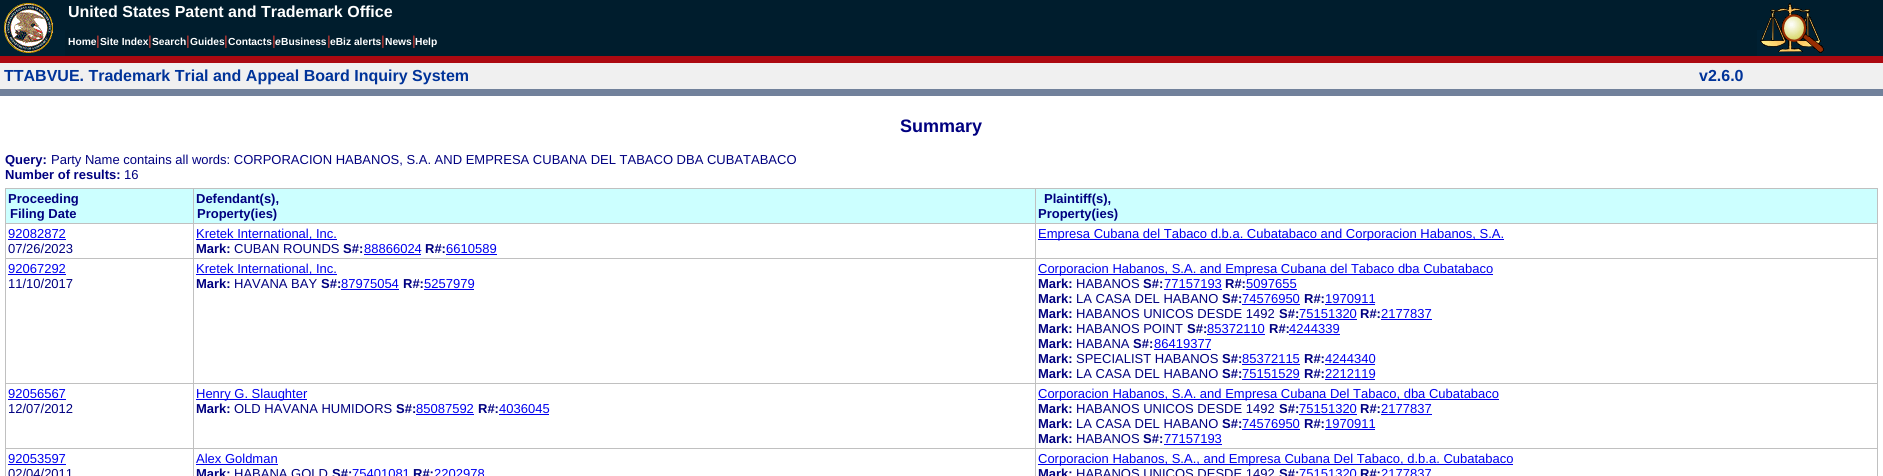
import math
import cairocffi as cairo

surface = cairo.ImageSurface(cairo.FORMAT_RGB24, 1883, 476)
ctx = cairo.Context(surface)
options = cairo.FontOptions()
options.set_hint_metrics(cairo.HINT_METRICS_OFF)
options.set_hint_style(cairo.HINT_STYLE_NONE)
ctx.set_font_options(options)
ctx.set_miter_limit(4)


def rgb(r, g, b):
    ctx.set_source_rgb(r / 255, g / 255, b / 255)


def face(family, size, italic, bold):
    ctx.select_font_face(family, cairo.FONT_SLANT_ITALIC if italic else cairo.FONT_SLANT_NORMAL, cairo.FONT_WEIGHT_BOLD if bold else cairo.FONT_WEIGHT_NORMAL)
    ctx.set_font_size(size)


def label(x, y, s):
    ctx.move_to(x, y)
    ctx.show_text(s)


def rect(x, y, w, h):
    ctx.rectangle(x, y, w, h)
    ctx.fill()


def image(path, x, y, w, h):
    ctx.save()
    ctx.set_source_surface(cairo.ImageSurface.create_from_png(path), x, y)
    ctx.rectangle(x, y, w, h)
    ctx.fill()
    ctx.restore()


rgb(255, 255, 255)
ctx.paint()
rgb(0, 29, 45)
rect(0, 0, 1883, 30)
rgb(0, 32, 50)
rect(0, 30, 1883, 26)
image('image0.png', 4, 3, 49, 50)
face('Liberation Sans', 16, 0, 1)
rgb(255, 255, 255)
label(68, 17, 'United States Patent and Trademark Office')
image('image1.png', 1760, 3, 64, 50)
rgb(0, 29, 45)
rect(65, 30, 1692, 26)
face('Liberation Sans', 10.25, 0, 1)
rgb(255, 255, 255)
label(68, 45, 'Home')
face('Liberation Sans', 13, 0, 1)
rgb(153, 51, 51)
label(96, 45, '|')
face('Liberation Sans', 10.25, 0, 1)
rgb(255, 255, 255)
label(100, 45, 'Site Index')
face('Liberation Sans', 13, 0, 1)
rgb(153, 51, 51)
label(148, 45, '|')
face('Liberation Sans', 10.25, 0, 1)
rgb(255, 255, 255)
label(152, 45, 'Search')
face('Liberation Sans', 13, 0, 1)
rgb(153, 51, 51)
label(186, 45, '|')
face('Liberation Sans', 10.25, 0, 1)
rgb(255, 255, 255)
label(190, 45, 'Guides')
face('Liberation Sans', 13, 0, 1)
rgb(153, 51, 51)
label(224, 45, '|')
face('Liberation Sans', 10.25, 0, 1)
rgb(255, 255, 255)
label(228, 45, 'Contacts')
face('Liberation Sans', 13, 0, 1)
rgb(153, 51, 51)
label(272, 45, '|')
face('Liberation Sans', 10.25, 1, 1)
rgb(255, 255, 255)
label(275, 45, 'e')
face('Liberation Sans', 10.25, 0, 1)
label(281, 45, 'Business')
face('Liberation Sans', 13, 0, 1)
rgb(153, 51, 51)
label(327, 45, '|')
face('Liberation Sans', 10.25, 0, 1)
rgb(255, 255, 255)
label(330, 45, 'eBiz alerts')
face('Liberation Sans', 13, 0, 1)
rgb(153, 51, 51)
label(381, 45, '|')
face('Liberation Sans', 10.25, 0, 1)
rgb(255, 255, 255)
label(385, 45, 'News')
face('Liberation Sans', 13, 0, 1)
rgb(153, 51, 51)
label(412, 45, '|')
face('Liberation Sans', 10.25, 0, 1)
rgb(255, 255, 255)
label(415, 45, 'Help')
rgb(172, 9, 17)
rect(0, 56, 1883, 7)
rgb(240, 240, 240)
rect(0, 63, 1883, 26)
face('Liberation Sans', 16, 0, 1)
rgb(0, 51, 153)
label(4, 81, 'TTABVUE. Trademark Trial and Appeal Board Inquiry System')
label(1699, 81, 'v2.6.0')
rgb(113, 129, 155)
rect(0, 89, 1883, 7)
face('Liberation Sans', 18, 0, 1)
rgb(0, 0, 128)
label(900, 132, 'Summary')
face('Liberation Sans', 13, 0, 1)
label(5, 164, 'Query:')
face('Liberation Sans', 13, 0, 0)
label(51, 164, 'Party Name contains all words: CORPORACION HABANOS, S.A. AND EMPRESA CUBANA DEL TABACO DBA CUBATABACO')
face('Liberation Sans', 13, 0, 1)
label(5, 179, 'Number of results:')
face('Liberation Sans', 13, 0, 0)
label(124, 179, '16')
rgb(192, 192, 192)
rect(5, 188, 1873, 288)
rgb(204, 255, 255)
rect(6, 189, 187, 34)
face('Liberation Sans', 13, 0, 1)
rgb(0, 0, 128)
label(8, 203, 'Proceeding')
label(10, 218, 'Filing Date')
rgb(204, 255, 255)
rect(194, 189, 841, 34)
rgb(0, 0, 128)
label(196, 203, 'Defendant(s),')
label(197, 218, 'Property(ies)')
rgb(204, 255, 255)
rect(1036, 189, 841, 34)
rgb(0, 0, 128)
label(1044, 203, 'Plaintiff(s),')
label(1038, 218, 'Property(ies)')
rgb(255, 255, 255)
rect(6, 224, 187, 34)
face('Liberation Sans', 13, 0, 0)
rgb(0, 0, 238)
label(8, 238, '92082872')
rect(8, 239, 58, 1)
rgb(0, 0, 128)
label(8, 253, '07/26/2023')
rgb(255, 255, 255)
rect(194, 224, 841, 34)
rgb(0, 0, 238)
rect(196, 239, 141, 1)
label(196, 238, 'Kretek International, Inc.')
face('Liberation Sans', 13, 0, 1)
rgb(0, 0, 128)
label(196, 253, 'Mark:')
face('Liberation Sans', 13, 0, 0)
label(234, 253, 'CUBAN ROUNDS')
face('Liberation Sans', 13, 0, 1)
label(343, 253, 'S#:')
face('Liberation Sans', 13, 0, 0)
rgb(0, 0, 238)
label(364, 253, '88866024')
rect(364, 254, 57, 1)
face('Liberation Sans', 13, 0, 1)
rgb(0, 0, 128)
label(425, 253, 'R#:')
face('Liberation Sans', 13, 0, 0)
rgb(0, 0, 238)
label(446, 253, '6610589')
rect(446, 254, 51, 1)
rgb(255, 255, 255)
rect(1036, 224, 841, 34)
rgb(0, 0, 238)
rect(1038, 239, 466, 1)
label(1038, 238, 'Empresa Cubana del Tabaco d.b.a. Cubatabaco and Corporacion Habanos, S.A.')
rgb(255, 255, 255)
rect(6, 259, 187, 124)
rgb(0, 0, 238)
label(8, 273, '92067292')
rect(8, 274, 58, 1)
rgb(0, 0, 128)
label(8, 288, '11/10/2017')
rgb(255, 255, 255)
rect(194, 259, 841, 124)
rgb(0, 0, 238)
rect(196, 274, 141, 1)
label(196, 273, 'Kretek International, Inc.')
face('Liberation Sans', 13, 0, 1)
rgb(0, 0, 128)
label(196, 288, 'Mark:')
face('Liberation Sans', 13, 0, 0)
label(234, 288, 'HAVANA BAY')
face('Liberation Sans', 13, 0, 1)
label(321, 288, 'S#:')
face('Liberation Sans', 13, 0, 0)
rgb(0, 0, 238)
label(341, 288, '87975054')
rect(341, 289, 58, 1)
face('Liberation Sans', 13, 0, 1)
rgb(0, 0, 128)
label(403, 288, 'R#:')
face('Liberation Sans', 13, 0, 0)
rgb(0, 0, 238)
label(424, 288, '5257979')
rect(424, 289, 50, 1)
rgb(255, 255, 255)
rect(1036, 259, 841, 124)
rgb(0, 0, 238)
rect(1038, 274, 455, 1)
label(1038, 273, 'Corporacion Habanos, S.A. and Empresa Cubana del Tabaco dba Cubatabaco')
face('Liberation Sans', 13, 0, 1)
rgb(0, 0, 128)
label(1038, 288, 'Mark:')
face('Liberation Sans', 13, 0, 0)
label(1076, 288, 'HABANOS')
face('Liberation Sans', 13, 0, 1)
label(1143, 288, 'S#:')
face('Liberation Sans', 13, 0, 0)
rgb(0, 0, 238)
label(1164, 288, '77157193')
rect(1164, 289, 58, 1)
face('Liberation Sans', 13, 0, 1)
rgb(0, 0, 128)
label(1225, 288, 'R#:')
face('Liberation Sans', 13, 0, 0)
rgb(0, 0, 238)
label(1246, 288, '5097655')
rect(1246, 289, 51, 1)
face('Liberation Sans', 13, 0, 1)
rgb(0, 0, 128)
label(1038, 303, 'Mark:')
face('Liberation Sans', 13, 0, 0)
label(1076, 303, 'LA CASA DEL HABANO')
face('Liberation Sans', 13, 0, 1)
label(1222, 303, 'S#:')
rgb(0, 0, 238)
rect(1242, 304, 58, 1)
face('Liberation Sans', 13, 0, 0)
label(1242, 303, '74576950')
face('Liberation Sans', 13, 0, 1)
rgb(0, 0, 128)
label(1304, 303, 'R#:')
face('Liberation Sans', 13, 0, 0)
rgb(0, 0, 238)
label(1325, 303, '1970911')
rect(1325, 304, 50, 1)
face('Liberation Sans', 13, 0, 1)
rgb(0, 0, 128)
label(1038, 318, 'Mark:')
face('Liberation Sans', 13, 0, 0)
label(1076, 318, 'HABANOS UNICOS DESDE 1492')
face('Liberation Sans', 13, 0, 1)
label(1279, 318, 'S#:')
face('Liberation Sans', 13, 0, 0)
rgb(0, 0, 238)
label(1299, 318, '75151320')
rect(1299, 319, 58, 1)
face('Liberation Sans', 13, 0, 1)
rgb(0, 0, 128)
label(1360, 318, 'R#:')
face('Liberation Sans', 13, 0, 0)
rgb(0, 0, 238)
label(1381, 318, '2177837')
rect(1381, 319, 51, 1)
face('Liberation Sans', 13, 0, 1)
rgb(0, 0, 128)
label(1038, 333, 'Mark:')
face('Liberation Sans', 13, 0, 0)
label(1076, 333, 'HABANOS POINT')
face('Liberation Sans', 13, 0, 1)
label(1187, 333, 'S#:')
face('Liberation Sans', 13, 0, 0)
rgb(0, 0, 238)
label(1207, 333, '85372110')
rect(1207, 334, 58, 1)
face('Liberation Sans', 13, 0, 1)
rgb(0, 0, 128)
label(1269, 333, 'R#:')
rgb(0, 0, 238)
rect(1289, 334, 51, 1)
face('Liberation Sans', 13, 0, 0)
label(1289, 333, '4244339')
face('Liberation Sans', 13, 0, 1)
rgb(0, 0, 128)
label(1038, 348, 'Mark:')
face('Liberation Sans', 13, 0, 0)
label(1076, 348, 'HABANA')
face('Liberation Sans', 13, 0, 1)
label(1133, 348, 'S#:')
face('Liberation Sans', 13, 0, 0)
rgb(0, 0, 238)
label(1154, 348, '86419377')
rect(1154, 349, 57, 1)
face('Liberation Sans', 13, 0, 1)
rgb(0, 0, 128)
label(1038, 363, 'Mark:')
face('Liberation Sans', 13, 0, 0)
label(1076, 363, 'SPECIALIST HABANOS')
face('Liberation Sans', 13, 0, 1)
label(1222, 363, 'S#:')
rgb(0, 0, 238)
rect(1242, 364, 58, 1)
face('Liberation Sans', 13, 0, 0)
label(1242, 363, '85372115')
face('Liberation Sans', 13, 0, 1)
rgb(0, 0, 128)
label(1304, 363, 'R#:')
face('Liberation Sans', 13, 0, 0)
rgb(0, 0, 238)
label(1325, 363, '4244340')
rect(1325, 364, 50, 1)
face('Liberation Sans', 13, 0, 1)
rgb(0, 0, 128)
label(1038, 378, 'Mark:')
face('Liberation Sans', 13, 0, 0)
label(1076, 378, 'LA CASA DEL HABANO')
face('Liberation Sans', 13, 0, 1)
label(1222, 378, 'S#:')
rgb(0, 0, 238)
rect(1242, 379, 58, 1)
face('Liberation Sans', 13, 0, 0)
label(1242, 378, '75151529')
face('Liberation Sans', 13, 0, 1)
rgb(0, 0, 128)
label(1304, 378, 'R#:')
face('Liberation Sans', 13, 0, 0)
rgb(0, 0, 238)
label(1325, 378, '2212119')
rect(1325, 379, 50, 1)
rgb(255, 255, 255)
rect(6, 384, 187, 64)
rgb(0, 0, 238)
label(8, 398, '92056567')
rect(8, 399, 58, 1)
rgb(0, 0, 128)
label(8, 413, '12/07/2012')
rgb(255, 255, 255)
rect(194, 384, 841, 64)
rgb(0, 0, 238)
rect(196, 399, 111, 1)
label(196, 398, 'Henry G. Slaughter')
face('Liberation Sans', 13, 0, 1)
rgb(0, 0, 128)
label(196, 413, 'Mark:')
face('Liberation Sans', 13, 0, 0)
label(234, 413, 'OLD HAVANA HUMIDORS')
face('Liberation Sans', 13, 0, 1)
label(396, 413, 'S#:')
rgb(0, 0, 238)
rect(416, 414, 58, 1)
face('Liberation Sans', 13, 0, 0)
label(416, 413, '85087592')
face('Liberation Sans', 13, 0, 1)
rgb(0, 0, 128)
label(478, 413, 'R#:')
face('Liberation Sans', 13, 0, 0)
rgb(0, 0, 238)
label(499, 413, '4036045')
rect(499, 414, 50, 1)
rgb(255, 255, 255)
rect(1036, 384, 841, 64)
rgb(0, 0, 238)
rect(1038, 399, 461, 1)
label(1038, 398, 'Corporacion Habanos, S.A. and Empresa Cubana Del Tabaco, dba Cubatabaco')
face('Liberation Sans', 13, 0, 1)
rgb(0, 0, 128)
label(1038, 413, 'Mark:')
face('Liberation Sans', 13, 0, 0)
label(1076, 413, 'HABANOS UNICOS DESDE 1492')
face('Liberation Sans', 13, 0, 1)
label(1279, 413, 'S#:')
face('Liberation Sans', 13, 0, 0)
rgb(0, 0, 238)
label(1299, 413, '75151320')
rect(1299, 414, 58, 1)
face('Liberation Sans', 13, 0, 1)
rgb(0, 0, 128)
label(1360, 413, 'R#:')
face('Liberation Sans', 13, 0, 0)
rgb(0, 0, 238)
label(1381, 413, '2177837')
rect(1381, 414, 51, 1)
face('Liberation Sans', 13, 0, 1)
rgb(0, 0, 128)
label(1038, 428, 'Mark:')
face('Liberation Sans', 13, 0, 0)
label(1076, 428, 'LA CASA DEL HABANO')
face('Liberation Sans', 13, 0, 1)
label(1222, 428, 'S#:')
rgb(0, 0, 238)
rect(1242, 429, 58, 1)
face('Liberation Sans', 13, 0, 0)
label(1242, 428, '74576950')
face('Liberation Sans', 13, 0, 1)
rgb(0, 0, 128)
label(1304, 428, 'R#:')
face('Liberation Sans', 13, 0, 0)
rgb(0, 0, 238)
label(1325, 428, '1970911')
rect(1325, 429, 50, 1)
face('Liberation Sans', 13, 0, 1)
rgb(0, 0, 128)
label(1038, 443, 'Mark:')
face('Liberation Sans', 13, 0, 0)
label(1076, 443, 'HABANOS')
face('Liberation Sans', 13, 0, 1)
label(1143, 443, 'S#:')
face('Liberation Sans', 13, 0, 0)
rgb(0, 0, 238)
label(1164, 443, '77157193')
rect(1164, 444, 58, 1)
rgb(255, 255, 255)
rect(6, 449, 187, 27)
rgb(0, 0, 238)
label(8, 463, '92053597')
rect(8, 464, 58, 1)
rgb(0, 0, 128)
label(8, 478, '02/04/2011')
rgb(255, 255, 255)
rect(194, 449, 841, 27)
rgb(0, 0, 238)
label(196, 463, 'Alex Goldman')
rect(196, 464, 82, 1)
face('Liberation Sans', 13, 0, 1)
rgb(0, 0, 128)
label(196, 478, 'Mark:')
face('Liberation Sans', 13, 0, 0)
label(234, 478, 'HABANA GOLD')
face('Liberation Sans', 13, 0, 1)
label(332, 478, 'S#:')
face('Liberation Sans', 13, 0, 0)
rgb(0, 0, 238)
label(352, 478, '75401081')
face('Liberation Sans', 13, 0, 1)
rgb(0, 0, 128)
label(413, 478, 'R#:')
face('Liberation Sans', 13, 0, 0)
rgb(0, 0, 238)
label(434, 478, '2202978')
rgb(255, 255, 255)
rect(1036, 449, 841, 27)
rgb(0, 0, 238)
rect(1038, 464, 475, 1)
label(1038, 463, 'Corporacion Habanos, S.A., and Empresa Cubana Del Tabaco, d.b.a. Cubatabaco')
face('Liberation Sans', 13, 0, 1)
rgb(0, 0, 128)
label(1038, 478, 'Mark:')
face('Liberation Sans', 13, 0, 0)
label(1076, 478, 'HABANOS UNICOS DESDE 1492')
face('Liberation Sans', 13, 0, 1)
label(1279, 478, 'S#:')
face('Liberation Sans', 13, 0, 0)
rgb(0, 0, 238)
label(1299, 478, '75151320')
face('Liberation Sans', 13, 0, 1)
rgb(0, 0, 128)
label(1360, 478, 'R#:')
face('Liberation Sans', 13, 0, 0)
rgb(0, 0, 238)
label(1381, 478, '2177837')
surface.write_to_png('render.png')
